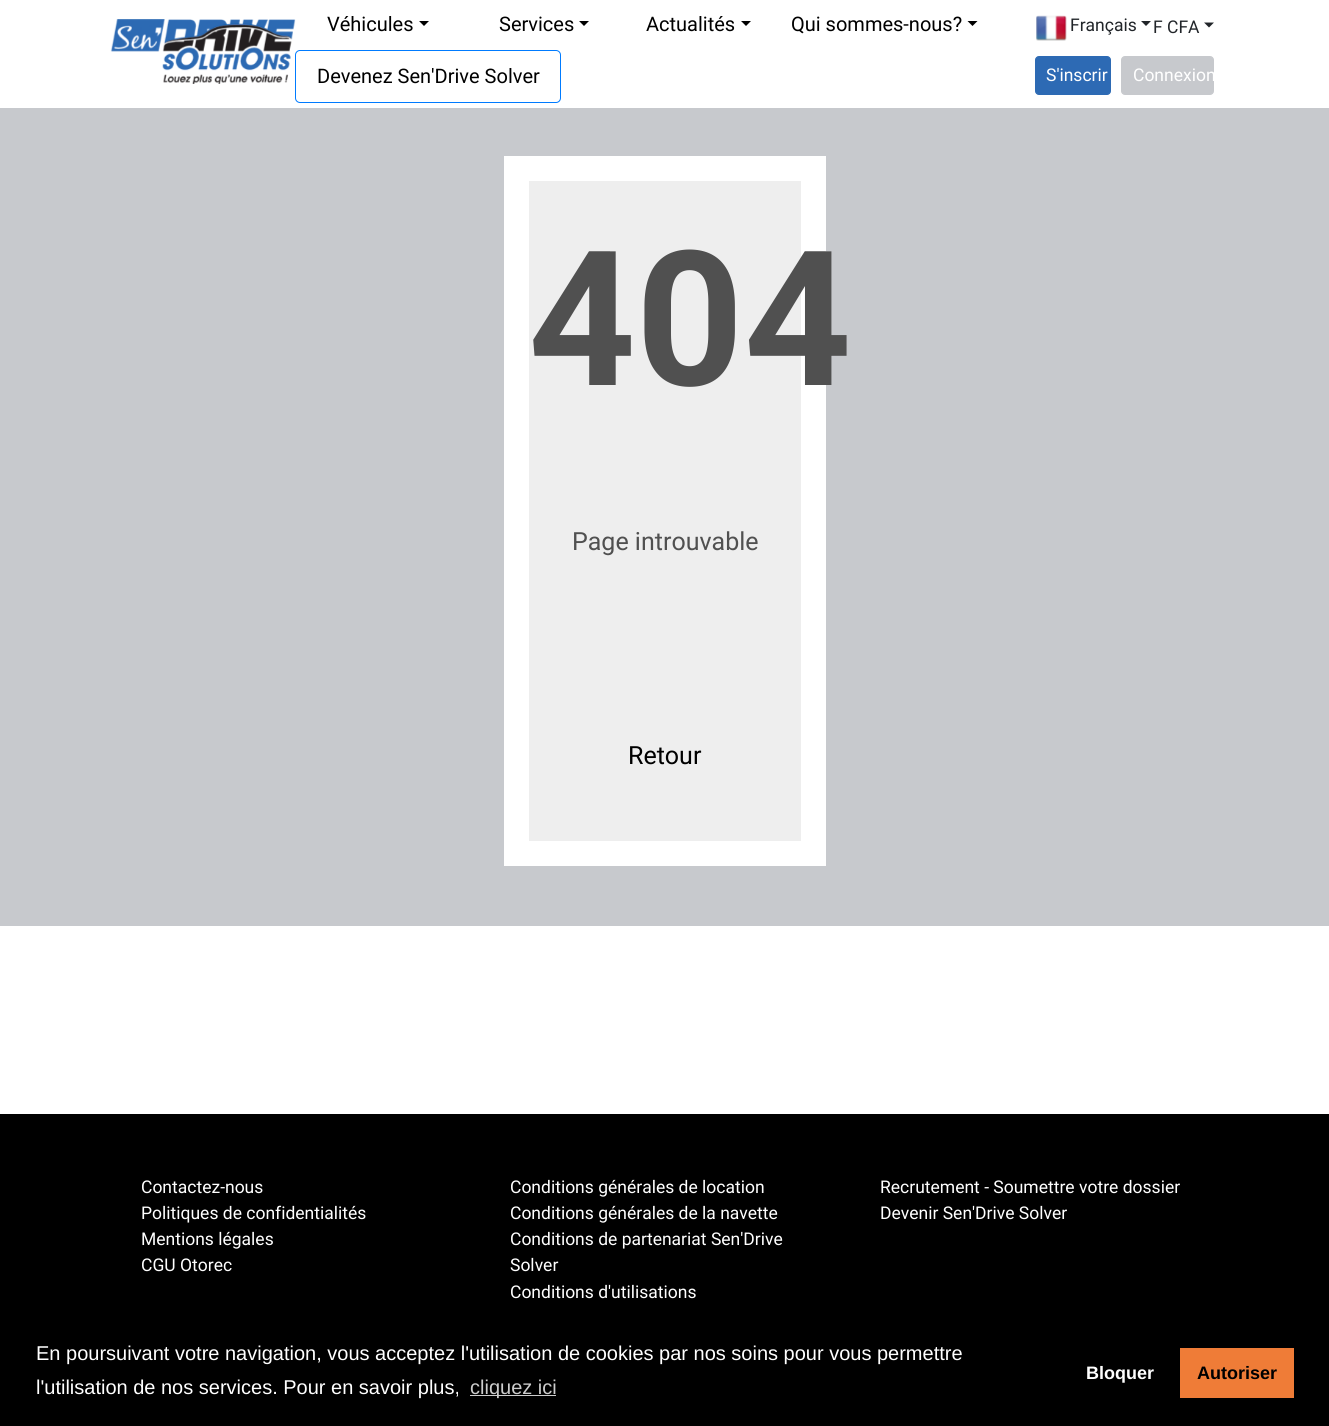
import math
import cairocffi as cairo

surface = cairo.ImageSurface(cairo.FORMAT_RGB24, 1329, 1426)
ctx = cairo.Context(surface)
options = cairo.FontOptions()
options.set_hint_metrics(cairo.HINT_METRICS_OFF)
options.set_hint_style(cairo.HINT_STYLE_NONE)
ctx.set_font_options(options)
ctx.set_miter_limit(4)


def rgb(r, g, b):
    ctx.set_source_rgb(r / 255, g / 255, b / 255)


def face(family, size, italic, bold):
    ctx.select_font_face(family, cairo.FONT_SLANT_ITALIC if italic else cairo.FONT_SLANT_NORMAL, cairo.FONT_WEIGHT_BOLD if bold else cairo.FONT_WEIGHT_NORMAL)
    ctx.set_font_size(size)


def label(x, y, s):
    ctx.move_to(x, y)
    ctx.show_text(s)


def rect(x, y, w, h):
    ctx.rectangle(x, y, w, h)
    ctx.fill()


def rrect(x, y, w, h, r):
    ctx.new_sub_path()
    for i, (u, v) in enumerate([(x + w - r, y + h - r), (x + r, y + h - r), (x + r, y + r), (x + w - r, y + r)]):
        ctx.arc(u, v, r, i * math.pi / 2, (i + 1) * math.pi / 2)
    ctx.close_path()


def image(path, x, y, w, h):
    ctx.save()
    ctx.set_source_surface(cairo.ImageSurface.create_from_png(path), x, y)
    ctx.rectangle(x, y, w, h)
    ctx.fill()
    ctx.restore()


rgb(255, 255, 255)
ctx.paint()
image('image0.png', 110, 19, 186, 65)
face('Roboto', 20, 0, 0)
rgb(0, 0, 0)
label(327, 31, 'Véhicules')
ctx.new_path()
ctx.move_to(419, 21)
ctx.line_to(429, 21)
ctx.line_to(424, 26)
ctx.close_path()
ctx.fill()
label(499, 31, 'Services')
ctx.new_path()
ctx.move_to(579, 21)
ctx.line_to(589, 21)
ctx.line_to(584, 26)
ctx.close_path()
ctx.fill()
label(646, 31, 'Actualités')
ctx.new_path()
ctx.move_to(741, 21)
ctx.line_to(751, 21)
ctx.line_to(746, 26)
ctx.close_path()
ctx.fill()
label(791, 31, 'Qui sommes-nous?')
ctx.new_path()
ctx.move_to(967.5, 21)
ctx.line_to(977.5, 21)
ctx.line_to(972.5, 26)
ctx.close_path()
ctx.fill()
rrect(295.5, 50.5, 265, 52, 4.5)
rgb(0, 123, 255)
ctx.set_line_width(1)
ctx.stroke()
rgb(0, 0, 0)
label(317, 83, 'Devenez Sen\'Drive Solver')
image('image1.png', 1036, 15, 31, 26)
face('Roboto', 17.5, 0, 0)
rgb(33, 37, 41)
label(1070, 31, 'Français')
ctx.new_path()
ctx.move_to(1141, 21)
ctx.line_to(1151, 21)
ctx.line_to(1146, 26)
ctx.close_path()
ctx.fill()
label(1153, 33, 'F CFA')
ctx.new_path()
ctx.move_to(1204, 22.5)
ctx.line_to(1214, 22.5)
ctx.line_to(1209, 27.5)
ctx.close_path()
ctx.fill()
rgb(45, 106, 180)
rrect(1035.5, 56.5, 75, 38, 3.5)
ctx.fill_preserve()
ctx.stroke()
rgb(255, 255, 255)
label(1046, 81, 'S\'inscrir')
rgb(199, 201, 205)
rrect(1121.5, 56.5, 92, 38, 3.5)
ctx.fill_preserve()
ctx.stroke()
rgb(255, 255, 255)
label(1133, 81, 'Connexion')
rgb(199, 201, 205)
rect(0, 108, 1329, 818)
ctx.rectangle(516.5, 168.5, 297, 685)
rgb(255, 255, 255)
ctx.set_line_width(25)
ctx.stroke()
rgb(238, 238, 238)
rect(529, 181, 272, 660)
face('Roboto', 188, 0, 1)
rgb(80, 80, 80)
label(528, 385, '404')
face('Roboto', 25, 0, 0)
label(572, 550, 'Page introuvable')
rgb(0, 0, 0)
label(628, 764, 'Retour')
rect(0, 1114, 1329, 312)
face('Roboto', 17.5, 0, 0)
rgb(255, 255, 255)
label(141, 1193, 'Contactez-nous')
label(141, 1219, 'Politiques de confidentialités')
label(141, 1245, 'Mentions légales')
label(141, 1271, 'CGU Otorec')
label(510, 1193, 'Conditions générales de location')
label(510, 1219, 'Conditions générales de la navette')
label(510, 1245, 'Conditions de partenariat Sen\'Drive')
label(510, 1271, 'Solver')
label(510, 1298, 'Conditions d\'utilisations')
label(880, 1193, 'Recrutement - Soumettre votre dossier')
label(880, 1219, 'Devenir Sen\'Drive Solver')
face('Liberation Sans', 20, 0, 0)
label(36, 1360, 'En poursuivant votre navigation, vous acceptez l\'utilisation de cookies par nos soins pour vous permettre')
label(36, 1394, 'l\'utilisation de nos services. Pour en savoir plus,')
rgb(204, 204, 204)
rect(470, 1395, 86, 1)
label(470, 1394, 'cliquez ici')
face('Liberation Sans', 18, 0, 1)
rgb(255, 255, 255)
label(1086, 1379, 'Bloquer')
rgb(239, 124, 55)
rect(1180, 1348, 114, 50)
rgb(0, 0, 0)
label(1197, 1379, 'Autoriser')
surface.write_to_png('render.png')
